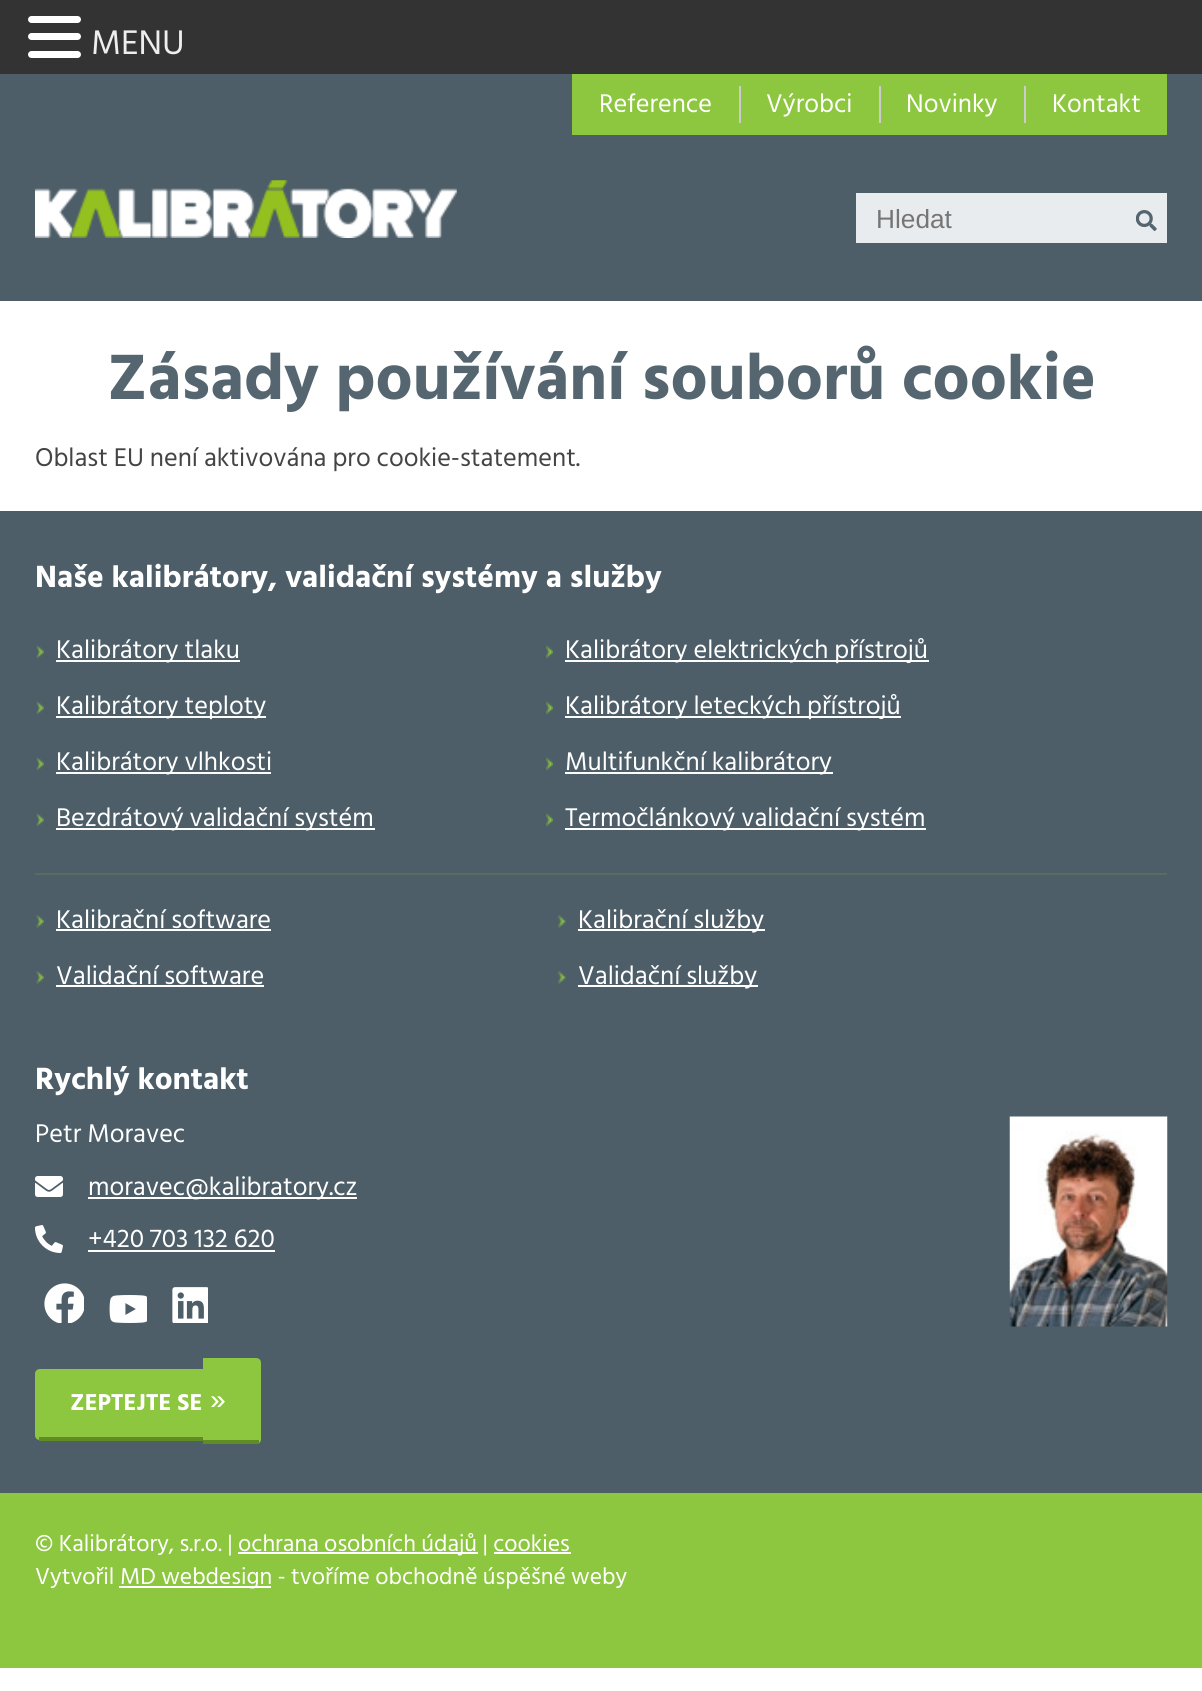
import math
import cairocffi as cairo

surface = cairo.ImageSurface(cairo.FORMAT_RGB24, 1202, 1691)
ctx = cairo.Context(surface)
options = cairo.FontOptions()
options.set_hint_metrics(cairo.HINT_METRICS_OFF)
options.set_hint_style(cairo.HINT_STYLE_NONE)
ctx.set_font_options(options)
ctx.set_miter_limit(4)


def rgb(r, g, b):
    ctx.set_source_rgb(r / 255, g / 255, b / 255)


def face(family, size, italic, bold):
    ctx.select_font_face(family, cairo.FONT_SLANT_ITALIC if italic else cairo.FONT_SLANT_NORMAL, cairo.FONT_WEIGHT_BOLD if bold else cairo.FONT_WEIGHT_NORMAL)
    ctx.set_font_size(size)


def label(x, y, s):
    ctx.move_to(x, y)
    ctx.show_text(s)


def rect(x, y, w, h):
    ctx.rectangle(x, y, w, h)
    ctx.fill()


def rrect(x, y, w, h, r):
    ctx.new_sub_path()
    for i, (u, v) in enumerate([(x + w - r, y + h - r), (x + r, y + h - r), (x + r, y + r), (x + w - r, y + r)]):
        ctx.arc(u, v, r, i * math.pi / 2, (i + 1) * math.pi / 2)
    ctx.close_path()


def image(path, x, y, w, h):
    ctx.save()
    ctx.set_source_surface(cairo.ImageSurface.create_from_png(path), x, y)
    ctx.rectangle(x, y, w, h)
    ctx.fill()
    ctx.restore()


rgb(255, 255, 255)
ctx.paint()
rgb(51, 51, 51)
rect(0, 0, 1202, 74)
rgb(255, 255, 255)
rrect(28, 16, 53, 7, 3.5)
ctx.fill()
rrect(28, 33, 53, 7, 3.5)
ctx.fill()
rrect(28, 51, 53, 7, 3.5)
ctx.fill()
face('Hind Siliguri', 35, 0, 0)
rgb(238, 238, 238)
label(91, 54, 'MENU')
rgb(77, 94, 104)
rect(0, 74, 1202, 227)
rgb(141, 198, 63)
rect(572, 74, 595, 61)
face('Hind Siliguri', 26.25, 0, 0)
rgb(255, 255, 255)
label(599, 112, 'Reference')
rgb(204, 204, 204)
rect(739, 86, 2, 37)
rgb(255, 255, 255)
label(766, 112, 'Výrobci')
rgb(204, 204, 204)
rect(879, 86, 2, 37)
rgb(255, 255, 255)
label(906, 112, 'Novinky')
rgb(204, 204, 204)
rect(1024, 86, 2, 37)
rgb(255, 255, 255)
label(1052, 112, 'Kontakt')
image('image0.png', 35, 180, 422, 58)
rgb(233, 236, 238)
rect(856, 193, 311, 50)
face('Liberation Sans', 26.25, 0, 0)
rgb(117, 117, 117)
label(876, 228, 'Hledat')
image('image1.png', 1136, 210, 21, 21)
face('Hind Siliguri', 65.6, 0, 1)
rgb(85, 102, 112)
label(107, 399, 'Zásady používání souborů cookie')
face('Hind Siliguri', 26.25, 0, 0)
rgb(68, 68, 68)
label(35, 466, 'Oblast EU není aktivována pro cookie-statement.')
rgb(77, 94, 104)
rect(0, 511, 1202, 982)
face('Hind Siliguri', 31.5, 0, 1)
rgb(255, 255, 255)
label(35, 587, 'Naše kalibrátory, validační systémy a služby')
image('image2.png', 36, 645, 8, 13)
rect(56, 660, 184, 2)
face('Hind Siliguri', 26.25, 0, 0)
label(56, 658, 'Kalibrátory tlaku')
image('image2.png', 36, 701, 8, 13)
rect(56, 716, 210, 2)
label(56, 714, 'Kalibrátory teploty')
image('image2.png', 36, 757, 8, 13)
rect(56, 772, 215, 2)
label(56, 770, 'Kalibrátory vlhkosti')
image('image2.png', 36, 813, 8, 13)
rect(56, 828, 319, 2)
label(56, 826, 'Bezdrátový validační systém')
image('image3.png', 546, 645, 7, 13)
rect(565, 660, 364, 2)
label(565, 658, 'Kalibrátory elektrických přístrojů')
image('image3.png', 546, 701, 7, 13)
rect(565, 716, 336, 2)
label(565, 714, 'Kalibrátory leteckých přístrojů')
image('image3.png', 546, 757, 7, 13)
rect(565, 772, 268, 2)
label(565, 770, 'Multifunkční kalibrátory')
image('image3.png', 546, 813, 7, 13)
rect(565, 828, 361, 2)
label(565, 826, 'Termočlánkový validační systém')
rgb(87, 109, 98)
rect(35, 873, 1132, 2)
image('image4.png', 36, 915, 8, 13)
rgb(255, 255, 255)
label(56, 928, 'Kalibrační software')
rect(56, 929, 215, 2)
image('image5.png', 558, 915, 8, 13)
rect(578, 929, 187, 2)
label(578, 928, 'Kalibrační služby')
image('image4.png', 36, 971, 8, 13)
label(56, 984, 'Validační software')
rect(56, 985, 208, 2)
image('image5.png', 558, 971, 8, 13)
rect(578, 985, 180, 2)
label(578, 984, 'Validační služby')
face('Hind Siliguri', 31.5, 0, 1)
label(35, 1089, 'Rychlý kontakt')
face('Hind Siliguri', 26.25, 0, 0)
label(35, 1142, 'Petr Moravec')
image('image6.png', 1009, 1116, 159, 211)
image('image7.png', 35, 1176, 28, 21)
rect(88, 1197, 269, 2)
label(88, 1195, 'moravec@kalibratory.cz')
image('image8.png', 35, 1225, 28, 28)
label(88, 1247, '+420 703 132 620')
rect(88, 1250, 187, 2)
image('image9.png', 44, 1283, 40, 40)
image('image10.png', 109, 1295, 38, 28)
image('image11.png', 172, 1287, 36, 36)
rgb(141, 198, 63)
ctx.new_path()
ctx.move_to(40, 1369)
ctx.line_to(203, 1369)
ctx.line_to(203, 1440)
ctx.line_to(40, 1440)
ctx.curve_to(37, 1440, 35, 1438, 35, 1435)
ctx.line_to(35, 1374)
ctx.curve_to(35, 1371, 37, 1369, 40, 1369)
ctx.close_path()
ctx.fill()
face('Hind Siliguri', 23.6, 0, 1)
rgb(255, 255, 255)
label(70, 1410, 'ZEPTEJTE SE')
rgb(96, 141, 35)
rect(39, 1437, 164, 4)
rgb(141, 198, 63)
ctx.new_path()
ctx.move_to(203, 1358)
ctx.line_to(256, 1358)
ctx.curve_to(259, 1358, 261, 1360, 261, 1363)
ctx.line_to(261, 1439)
ctx.curve_to(261, 1442, 259, 1444, 256, 1444)
ctx.line_to(203, 1444)
ctx.close_path()
ctx.fill()
rgb(96, 141, 35)
rect(203, 1440, 56, 4)
face('Hind Siliguri', 33, 0, 0)
rgb(255, 255, 255)
label(210, 1410, '»')
rgb(141, 198, 63)
rect(0, 1493, 1202, 175)
face('Hind Siliguri', 23.6, 0, 0)
rgb(255, 255, 255)
label(35, 1551, '© Kalibrátory, s.r.o. |')
rect(238, 1552, 240, 2)
label(238, 1551, 'ochrana osobních údajů | cookies')
rect(494, 1552, 77, 2)
label(35, 1584, 'Vytvořil')
rect(119, 1586, 152, 2)
label(120, 1584, 'MD webdesign - tvoříme obchodně úspěšné weby')
surface.write_to_png('render.png')
